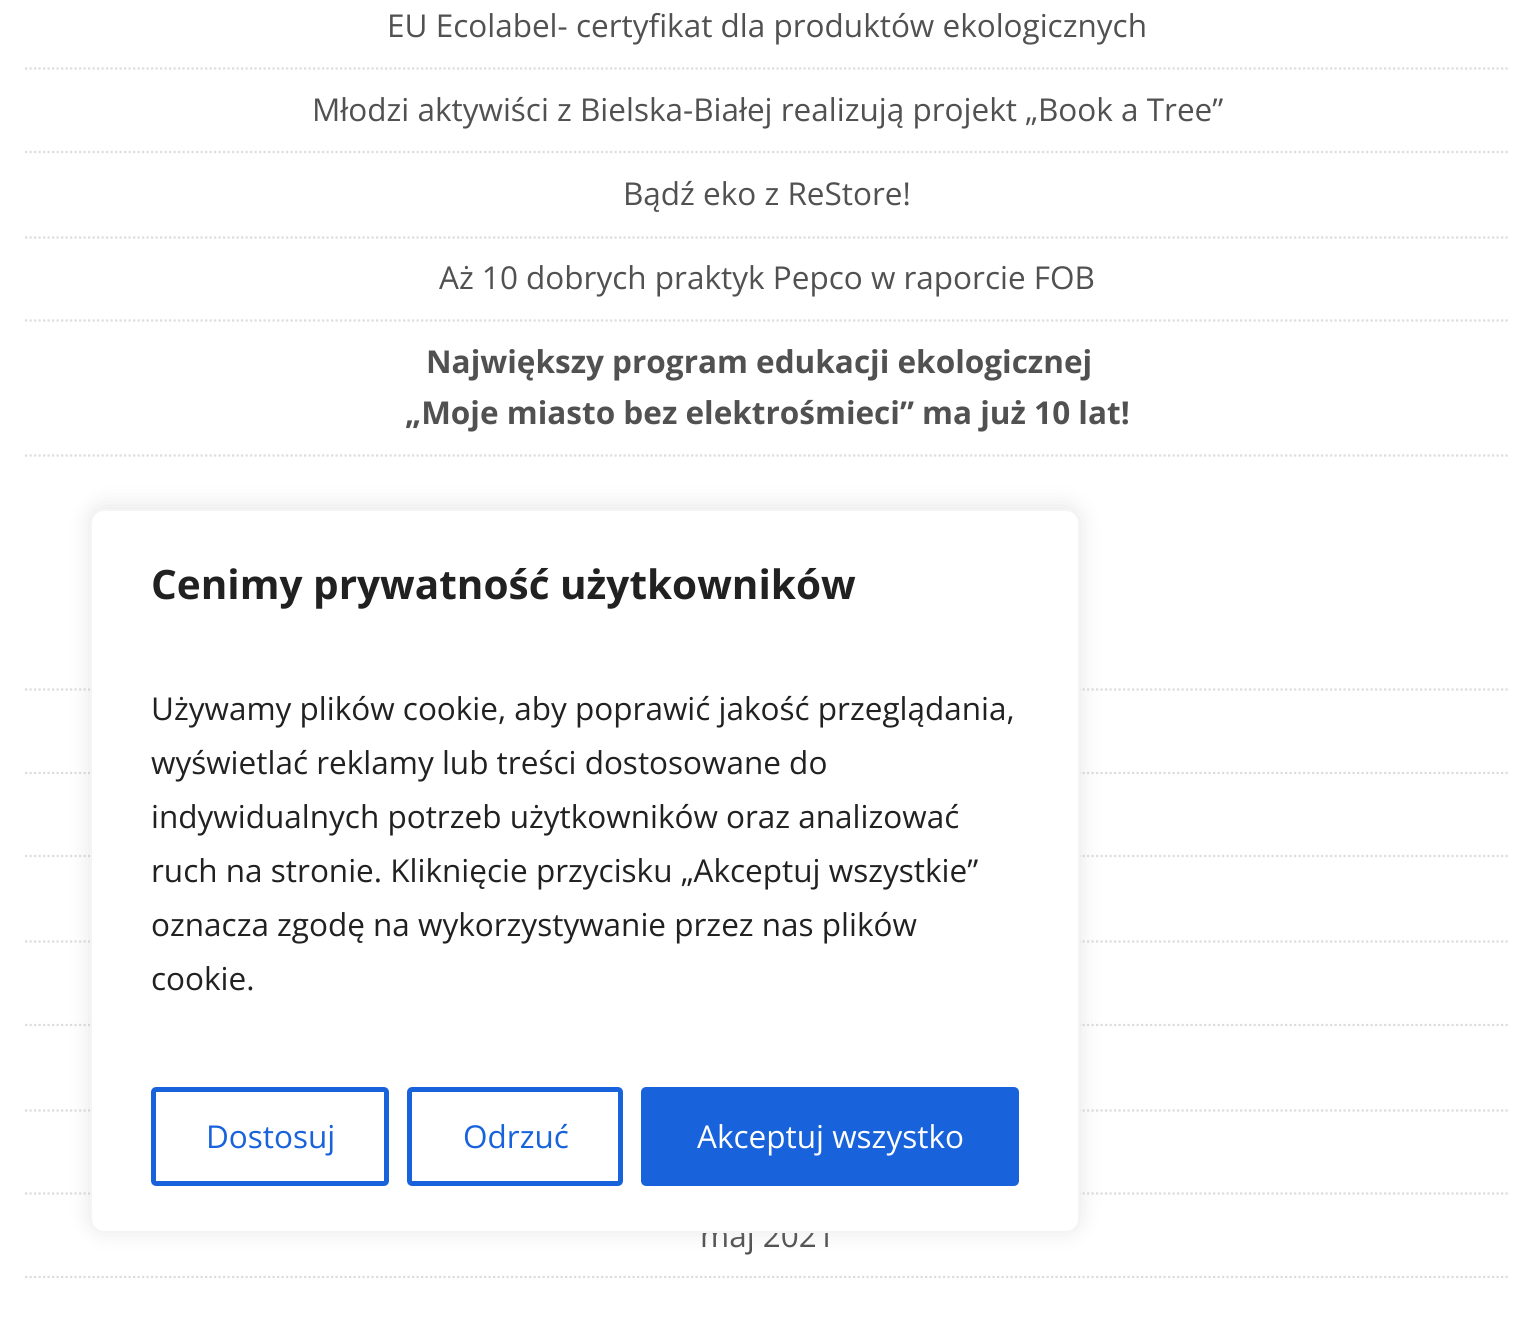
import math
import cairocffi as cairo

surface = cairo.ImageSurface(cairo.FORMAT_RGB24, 1533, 1321)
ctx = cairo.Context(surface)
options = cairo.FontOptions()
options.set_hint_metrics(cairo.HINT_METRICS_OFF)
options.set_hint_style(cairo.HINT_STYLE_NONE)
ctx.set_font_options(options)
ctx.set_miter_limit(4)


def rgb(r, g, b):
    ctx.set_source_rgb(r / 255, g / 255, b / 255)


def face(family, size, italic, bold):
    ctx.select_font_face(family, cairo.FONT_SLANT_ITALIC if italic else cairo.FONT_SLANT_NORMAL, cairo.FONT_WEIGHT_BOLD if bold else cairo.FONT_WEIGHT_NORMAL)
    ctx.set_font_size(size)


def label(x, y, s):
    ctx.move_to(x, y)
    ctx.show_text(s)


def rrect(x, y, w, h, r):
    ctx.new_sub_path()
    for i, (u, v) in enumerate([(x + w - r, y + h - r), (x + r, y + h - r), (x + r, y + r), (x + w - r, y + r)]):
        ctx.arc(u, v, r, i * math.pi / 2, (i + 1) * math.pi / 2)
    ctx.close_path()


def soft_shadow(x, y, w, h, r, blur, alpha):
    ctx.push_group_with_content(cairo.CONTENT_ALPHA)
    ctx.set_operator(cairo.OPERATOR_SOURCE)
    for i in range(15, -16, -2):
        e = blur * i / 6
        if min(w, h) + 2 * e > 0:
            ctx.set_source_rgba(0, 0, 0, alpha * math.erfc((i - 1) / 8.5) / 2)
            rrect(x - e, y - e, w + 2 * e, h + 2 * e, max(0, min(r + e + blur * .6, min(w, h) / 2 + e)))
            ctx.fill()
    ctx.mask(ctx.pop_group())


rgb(255, 255, 255)
ctx.paint()
ctx.new_path()
ctx.move_to(25, 68.5)
ctx.line_to(1510, 68.5)
rgb(221, 221, 221)
ctx.set_line_width(2.2)
ctx.set_dash([2.25, 2.25])
ctx.stroke()
face('Open Sans', 31.5, 0, 0)
rgb(81, 81, 81)
label(387, 37, 'EU Ecolabel- certyfikat dla produktów ekologicznych')
ctx.new_path()
ctx.move_to(25, 152)
ctx.line_to(1510, 152)
rgb(221, 221, 221)
ctx.stroke()
rgb(81, 81, 81)
label(312, 121, 'Młodzi aktywiści z Bielska-Białej realizują projekt „Book a Tree”')
ctx.new_path()
ctx.move_to(25, 237.5)
ctx.line_to(1510, 237.5)
rgb(221, 221, 221)
ctx.stroke()
rgb(81, 81, 81)
label(623, 205, 'Bądź eko z ReStore!')
ctx.new_path()
ctx.move_to(25, 320.5)
ctx.line_to(1510, 320.5)
rgb(221, 221, 221)
ctx.stroke()
rgb(81, 81, 81)
label(439, 289, 'Aż 10 dobrych praktyk Pepco w raporcie FOB')
ctx.new_path()
ctx.move_to(25, 455.5)
ctx.line_to(1510, 455.5)
rgb(221, 221, 221)
ctx.stroke()
face('Open Sans', 31.5, 0, 1)
rgb(81, 81, 81)
label(426, 373, 'Największy program edukacji ekologicznej')
label(405, 424, '„Moje miasto bez elektrośmieci” ma już 10 lat!')
ctx.new_path()
ctx.move_to(25, 689.5)
ctx.line_to(1510, 689.5)
rgb(221, 221, 221)
ctx.stroke()
ctx.new_path()
ctx.move_to(25, 773)
ctx.line_to(1510, 773)
ctx.stroke()
ctx.new_path()
ctx.move_to(25, 856)
ctx.line_to(1510, 856)
ctx.stroke()
ctx.new_path()
ctx.move_to(25, 941.5)
ctx.line_to(1510, 941.5)
ctx.stroke()
ctx.new_path()
ctx.move_to(25, 1025)
ctx.line_to(1510, 1025)
ctx.stroke()
ctx.new_path()
ctx.move_to(25, 1110.5)
ctx.line_to(1510, 1110.5)
ctx.stroke()
ctx.new_path()
ctx.move_to(25, 1193.5)
ctx.line_to(1510, 1193.5)
ctx.stroke()
ctx.new_path()
ctx.move_to(25, 1277)
ctx.line_to(1510, 1277)
ctx.stroke()
face('Open Sans', 31.5, 0, 0)
rgb(81, 81, 81)
label(700, 1247, 'maj 2021')
rgb(172, 171, 171)
soft_shadow(90, 506, 990, 725, 14, 11, 0.3)
rgb(255, 255, 255)
rrect(91, 510, 988, 722, 13)
ctx.fill_preserve()
rgb(244, 244, 244)
ctx.set_line_width(2)
ctx.set_dash([])
ctx.stroke()
face('Open Sans', 40.5, 0, 1)
rgb(33, 33, 33)
label(151, 599, 'Cenimy prywatność użytkowników')
face('Open Sans', 31.5, 0, 0)
label(151, 720, 'Używamy plików cookie, aby poprawić jakość przeglądania,')
label(151, 774, 'wyświetlać reklamy lub treści dostosowane do')
label(151, 828, 'indywidualnych potrzeb użytkowników oraz analizować')
label(151, 882, 'ruch na stronie. Kliknięcie przycisku „Akceptuj wszystkie”')
label(151, 936, 'oznacza zgodę na wykorzystywanie przez nas plików')
label(151, 990, 'cookie.')
rrect(153.5, 1089.5, 233, 94, 2.5)
rgb(24, 99, 220)
ctx.set_line_width(5)
ctx.stroke()
label(206, 1148, 'Dostosuj')
rrect(409.5, 1089.5, 211, 94, 2.5)
ctx.stroke()
label(463, 1148, 'Odrzuć')
rrect(643.5, 1089.5, 373, 94, 2.5)
ctx.fill_preserve()
ctx.stroke()
rgb(255, 255, 255)
label(697, 1148, 'Akceptuj wszystko')
surface.write_to_png('render.png')
